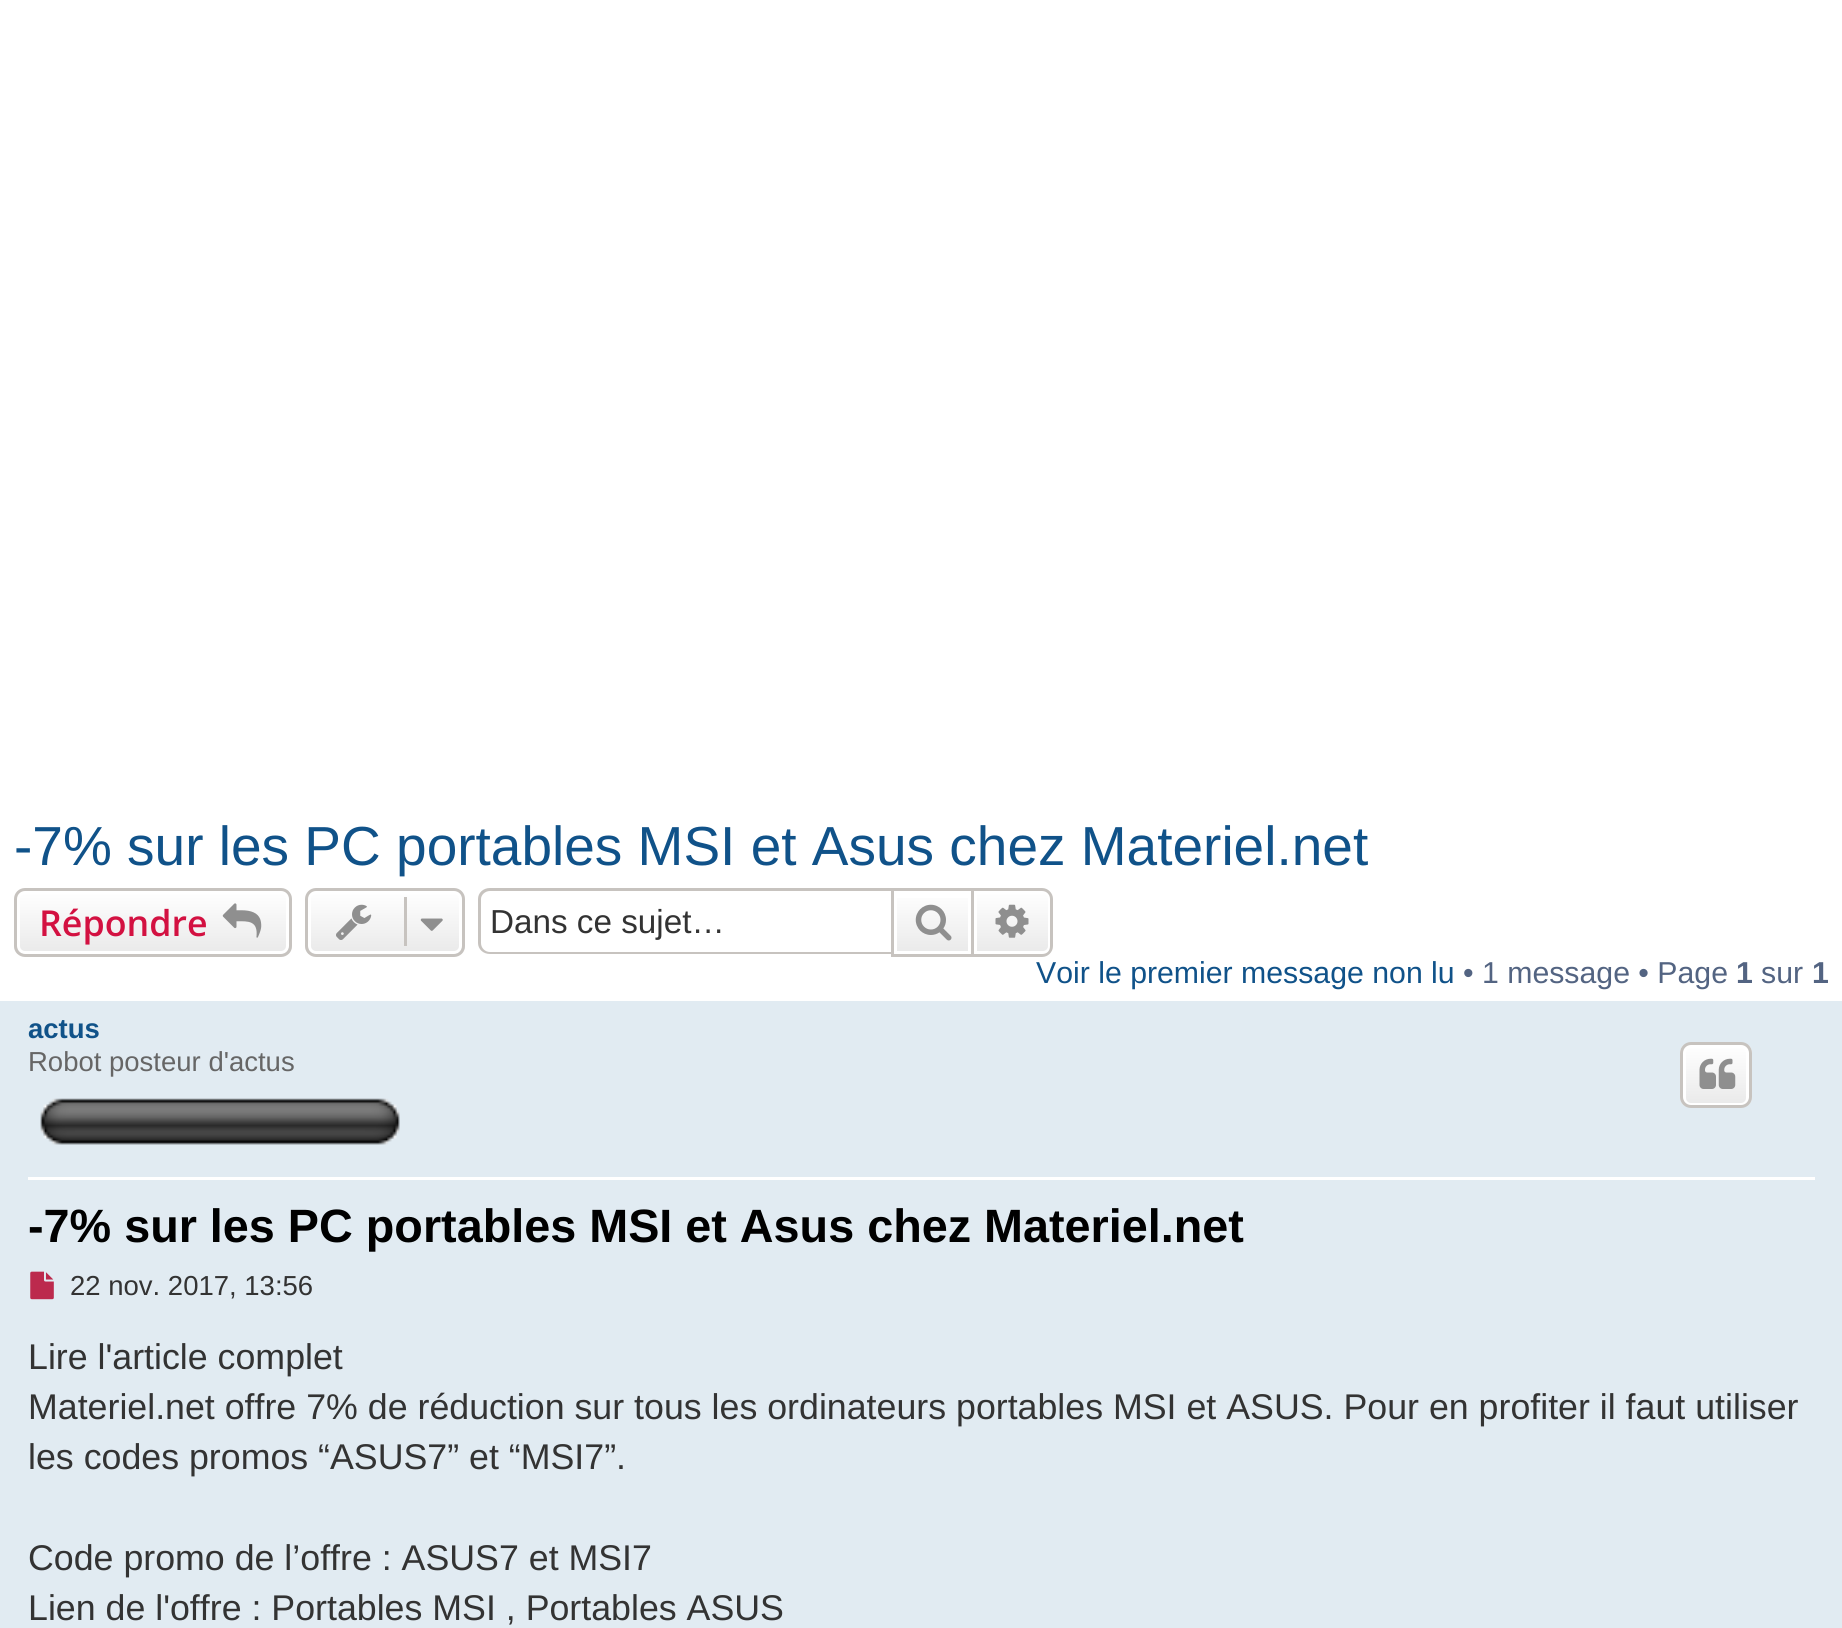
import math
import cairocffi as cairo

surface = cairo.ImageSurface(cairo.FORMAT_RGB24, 1842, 1628)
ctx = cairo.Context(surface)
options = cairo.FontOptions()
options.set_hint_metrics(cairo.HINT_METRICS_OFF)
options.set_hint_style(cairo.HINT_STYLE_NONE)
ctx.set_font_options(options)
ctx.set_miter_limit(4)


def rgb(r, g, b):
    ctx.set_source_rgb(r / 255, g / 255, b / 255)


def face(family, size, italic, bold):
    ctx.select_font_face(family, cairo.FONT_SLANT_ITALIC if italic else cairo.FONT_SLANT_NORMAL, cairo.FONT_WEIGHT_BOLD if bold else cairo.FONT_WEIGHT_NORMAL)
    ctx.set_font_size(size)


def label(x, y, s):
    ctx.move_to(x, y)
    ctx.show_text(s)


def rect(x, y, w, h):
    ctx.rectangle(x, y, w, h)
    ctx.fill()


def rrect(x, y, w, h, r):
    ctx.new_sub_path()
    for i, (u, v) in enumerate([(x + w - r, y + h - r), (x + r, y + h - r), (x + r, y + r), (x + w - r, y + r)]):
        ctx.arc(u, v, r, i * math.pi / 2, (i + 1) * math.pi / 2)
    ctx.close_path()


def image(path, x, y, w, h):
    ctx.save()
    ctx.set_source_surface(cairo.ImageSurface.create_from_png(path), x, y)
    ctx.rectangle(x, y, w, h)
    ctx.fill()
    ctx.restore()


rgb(255, 255, 255)
ctx.paint()
face('Liberation Sans', 55, 0, 0)
rgb(16, 82, 137)
label(14, 865, '-7% sur les PC portables MSI et Asus chez Materiel.net')
ctx.save()
rrect(14, 888, 278, 69, 11)
ctx.clip()
gradient = cairo.LinearGradient(153, 891, 153, 954)
gradient.add_color_stop_rgba(0, 1, 1, 1, 1)
gradient.add_color_stop_rgba(1, 0.914, 0.914, 0.914, 1)
ctx.set_source(gradient)
rect(14, 891, 278, 63)
ctx.restore()
rrect(18.5, 892.5, 269, 60, 6.5)
rgb(255, 255, 255)
ctx.set_line_width(3)
ctx.stroke()
rrect(15.5, 889.5, 275, 66, 9.5)
rgb(199, 195, 191)
ctx.stroke()
face('Open Sans SemiBold', 35.75, 0, 0)
rgb(211, 17, 65)
label(39, 936, 'Répondre')
image('image0.png', 222, 903, 40, 35)
ctx.save()
rrect(305, 888, 160, 69, 11)
ctx.clip()
gradient = cairo.LinearGradient(385, 891, 385, 954)
gradient.add_color_stop_rgba(0, 1, 1, 1, 1)
gradient.add_color_stop_rgba(1, 0.914, 0.914, 0.914, 1)
ctx.set_source(gradient)
rect(305, 891, 160, 63)
ctx.restore()
rrect(309.5, 892.5, 151, 60, 6.5)
rgb(255, 255, 255)
ctx.stroke()
rrect(306.5, 889.5, 157, 66, 9.5)
rgb(199, 195, 191)
ctx.stroke()
image('image1.png', 336, 904, 36, 36)
rect(404, 897, 3, 49)
image('image2.png', 420, 918, 23, 13)
ctx.set_fill_rule(cairo.FILL_RULE_EVEN_ODD)
ctx.new_path()
ctx.move_to(490, 888)
ctx.line_to(891, 888)
ctx.line_to(891, 954)
ctx.line_to(490, 954)
ctx.curve_to(483, 954, 478, 949, 478, 943)
ctx.line_to(478, 899)
ctx.curve_to(478, 893, 483, 888, 490, 888)
ctx.close_path()
ctx.move_to(490, 891)
ctx.line_to(891, 891)
ctx.line_to(891, 952)
ctx.line_to(490, 952)
ctx.curve_to(485, 952, 481, 948, 481, 943)
ctx.line_to(481, 899)
ctx.curve_to(481, 895, 485, 891, 490, 891)
ctx.close_path()
ctx.fill()
face('Liberation Sans', 33.25, 0, 0)
rgb(51, 51, 51)
label(490, 933, 'Dans ce sujet…')
gradient = cairo.LinearGradient(932, 891, 932, 954)
gradient.add_color_stop_rgba(0, 1, 1, 1, 1)
gradient.add_color_stop_rgba(1, 0.914, 0.914, 0.914, 1)
ctx.set_source(gradient)
rect(897, 898, 71, 53)
ctx.rectangle(892.5, 889.5, 80, 66)
rgb(199, 195, 191)
ctx.stroke()
image('image3.png', 915, 904, 37, 37)
gradient = cairo.LinearGradient(1012, 891, 1012, 954)
gradient.add_color_stop_rgba(0, 1, 1, 1, 1)
gradient.add_color_stop_rgba(1, 0.914, 0.914, 0.914, 1)
ctx.set_source(gradient)
ctx.new_path()
ctx.move_to(975.5, 892.5)
ctx.line_to(1043, 892.5)
ctx.curve_to(1046.5, 892.5, 1049.5, 895.5, 1049.5, 899)
ctx.line_to(1049.5, 946)
ctx.curve_to(1049.5, 949.5, 1046.5, 952.5, 1043, 952.5)
ctx.line_to(975.5, 952.5)
ctx.close_path()
ctx.fill_preserve()
rgb(255, 255, 255)
ctx.stroke()
rgb(199, 195, 191)
ctx.new_path()
ctx.move_to(974, 888)
ctx.line_to(1042, 888)
ctx.curve_to(1048, 888, 1053, 893, 1053, 899)
ctx.line_to(1053, 946)
ctx.curve_to(1053, 952, 1048, 957, 1042, 957)
ctx.line_to(974, 957)
ctx.close_path()
ctx.move_to(974, 891)
ctx.line_to(1042, 891)
ctx.curve_to(1047, 891, 1050, 895, 1050, 899)
ctx.line_to(1050, 946)
ctx.curve_to(1050, 951, 1047, 954, 1042, 954)
ctx.line_to(974, 954)
ctx.close_path()
ctx.fill()
image('image4.png', 995, 904, 34, 34)
face('Liberation Sans', 30.25, 0, 0)
rgb(16, 82, 137)
label(1036, 983, 'Voir le premier message non lu')
rgb(83, 100, 130)
label(1463, 983, '• 1 message • Page')
face('Liberation Sans', 30.25, 0, 1)
label(1736, 983, '1')
face('Liberation Sans', 30.25, 0, 0)
label(1761, 983, 'sur')
face('Liberation Sans', 30.25, 0, 1)
label(1812, 983, '1')
rgb(225, 235, 242)
rect(0, 1001, 1842, 627)
rgb(255, 255, 255)
rect(28, 1177, 1787, 3)
face('Liberation Sans', 27.5, 0, 1)
rgb(16, 82, 137)
label(28, 1038, 'actus')
face('Liberation Sans', 27.5, 0, 0)
rgb(102, 102, 102)
label(28, 1071, 'Robot posteur d\'actus')
image('image5.png', 40, 1098, 360, 47)
ctx.save()
ctx.set_fill_rule(cairo.FILL_RULE_WINDING)
rrect(1680, 1042, 72, 66, 11)
ctx.clip()
gradient = cairo.LinearGradient(1716, 1045, 1716, 1106)
gradient.add_color_stop_rgba(0, 1, 1, 1, 1)
gradient.add_color_stop_rgba(1, 0.914, 0.914, 0.914, 1)
ctx.set_source(gradient)
rect(1680, 1045, 72, 61)
ctx.restore()
rrect(1684.5, 1046.5, 63, 58, 6.5)
rgb(255, 255, 255)
ctx.stroke()
rrect(1681.5, 1043.5, 69, 63, 9.5)
rgb(199, 195, 191)
ctx.stroke()
image('image6.png', 1699, 1058, 37, 31)
face('Liberation Sans', 46.75, 0, 1)
rgb(0, 0, 0)
label(28, 1242, '-7% sur les PC portables MSI et Asus chez Materiel.net')
image('image7.png', 30, 1271, 24, 29)
face('Liberation Sans', 27.5, 0, 0)
rgb(51, 51, 51)
label(70, 1295, '22 nov. 2017, 13:56')
face('Liberation Sans', 35.75, 0, 0)
label(28, 1369, 'Lire l\'article complet')
label(28, 1419, 'Materiel.net offre 7% de réduction sur tous les ordinateurs portables MSI et ASUS. Pour en profiter il faut utiliser')
label(28, 1469, 'les codes promos “ASUS7” et “MSI7”.')
label(28, 1570, 'Code promo de l’offre : ASUS7 et MSI7')
label(28, 1620, 'Lien de l\'offre : Portables MSI , Portables ASUS')
surface.write_to_png('render.png')
